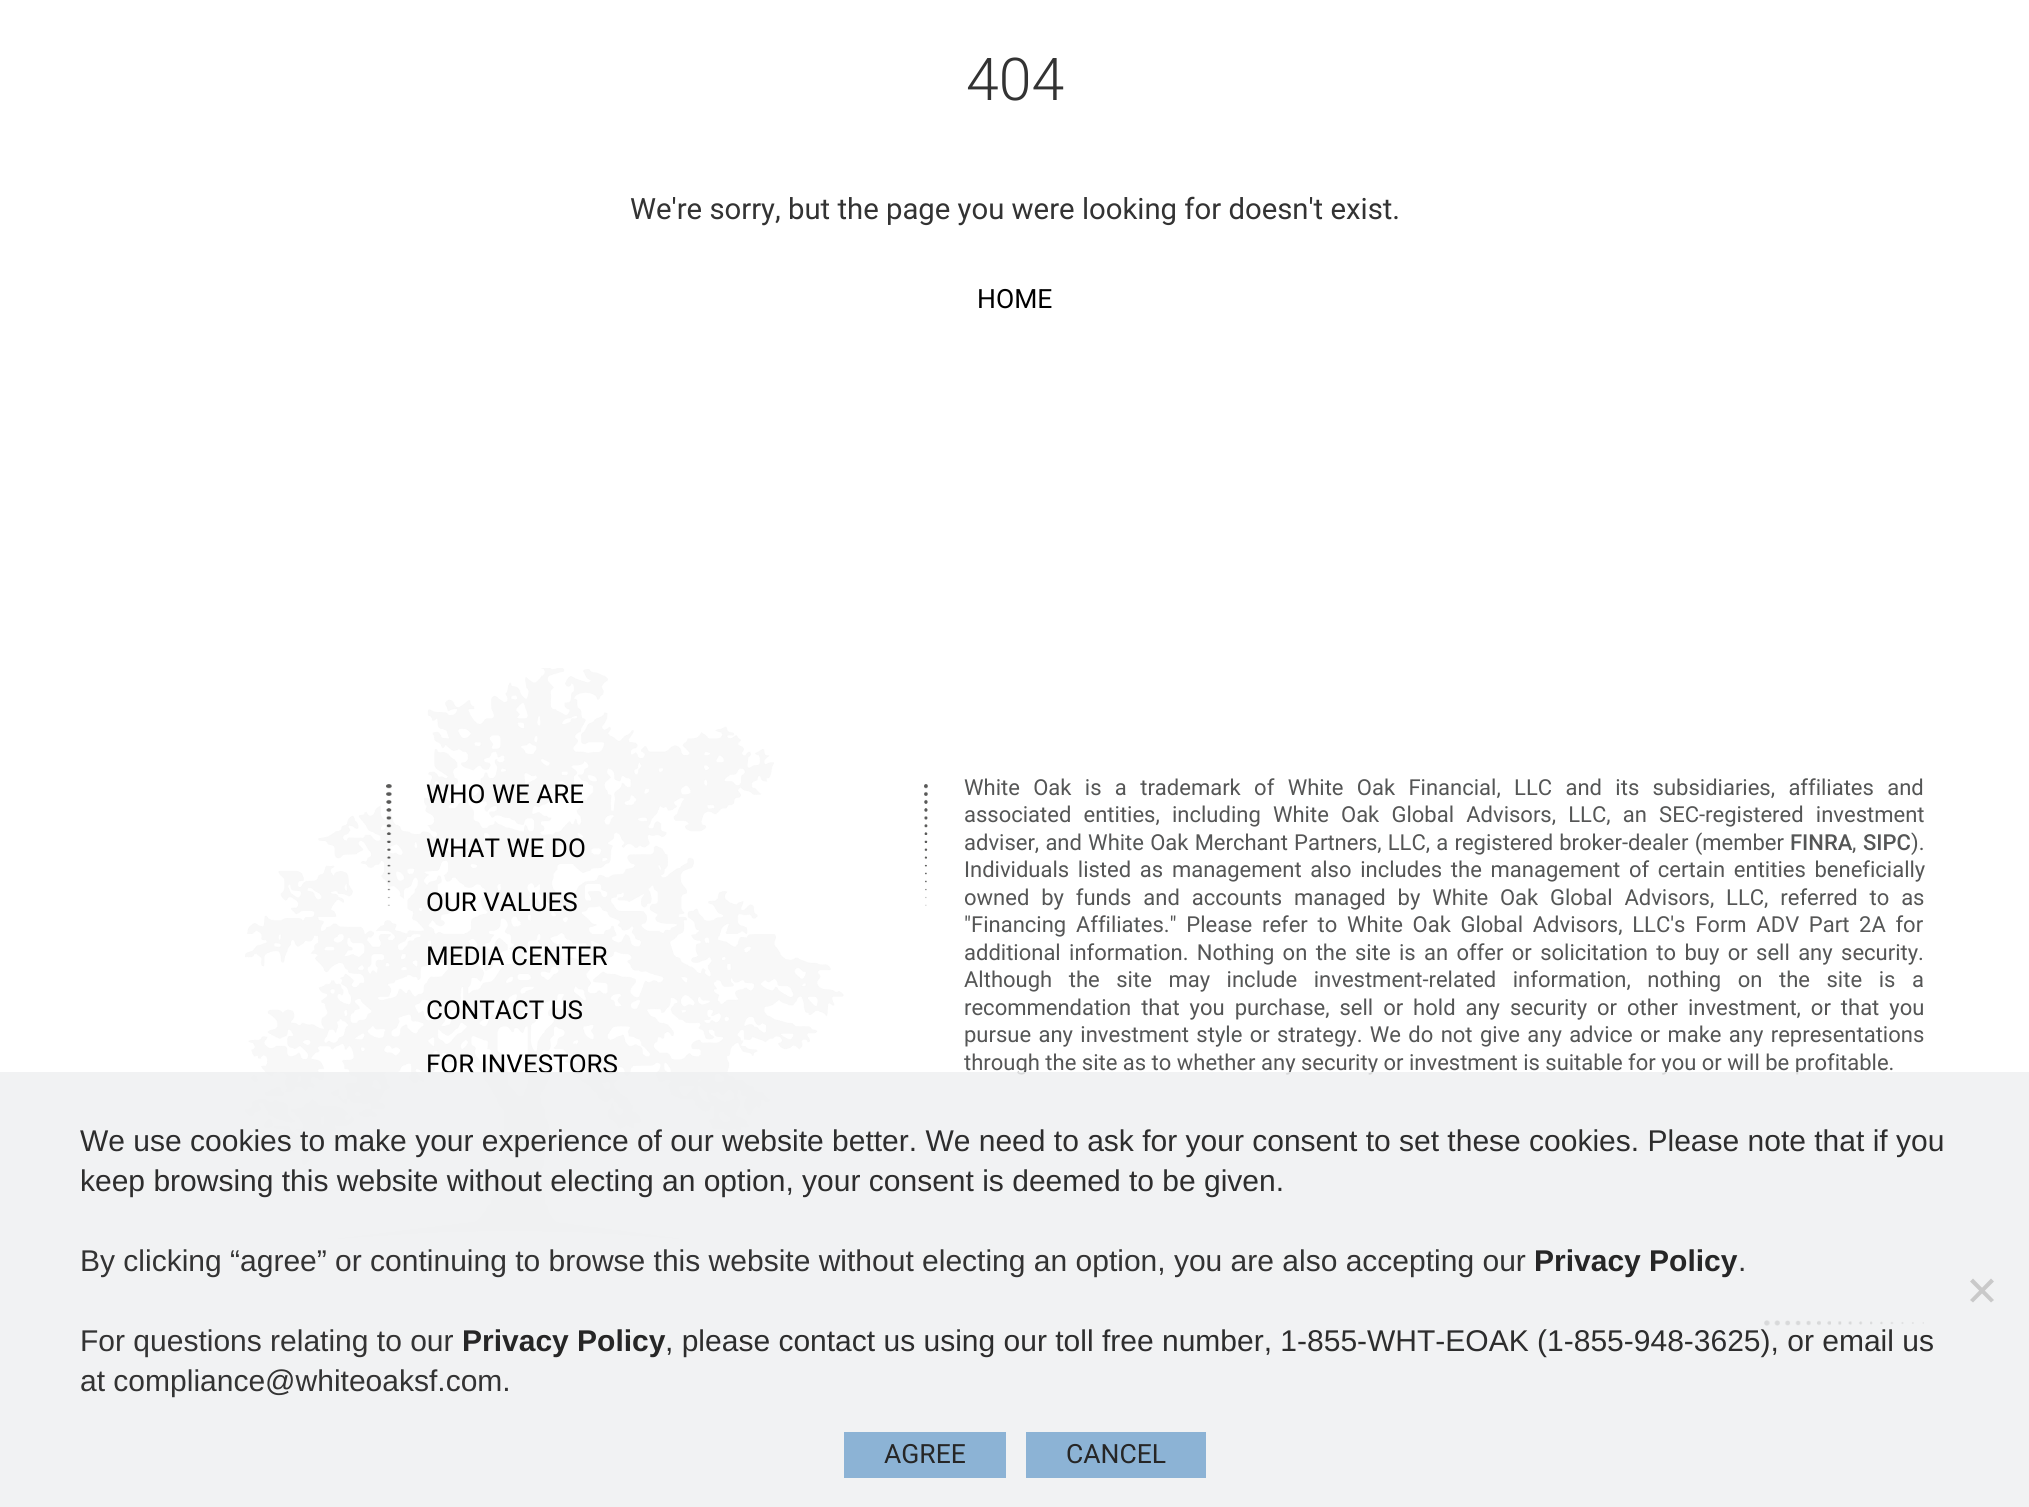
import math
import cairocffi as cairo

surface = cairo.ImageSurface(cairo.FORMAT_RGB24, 2029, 1507)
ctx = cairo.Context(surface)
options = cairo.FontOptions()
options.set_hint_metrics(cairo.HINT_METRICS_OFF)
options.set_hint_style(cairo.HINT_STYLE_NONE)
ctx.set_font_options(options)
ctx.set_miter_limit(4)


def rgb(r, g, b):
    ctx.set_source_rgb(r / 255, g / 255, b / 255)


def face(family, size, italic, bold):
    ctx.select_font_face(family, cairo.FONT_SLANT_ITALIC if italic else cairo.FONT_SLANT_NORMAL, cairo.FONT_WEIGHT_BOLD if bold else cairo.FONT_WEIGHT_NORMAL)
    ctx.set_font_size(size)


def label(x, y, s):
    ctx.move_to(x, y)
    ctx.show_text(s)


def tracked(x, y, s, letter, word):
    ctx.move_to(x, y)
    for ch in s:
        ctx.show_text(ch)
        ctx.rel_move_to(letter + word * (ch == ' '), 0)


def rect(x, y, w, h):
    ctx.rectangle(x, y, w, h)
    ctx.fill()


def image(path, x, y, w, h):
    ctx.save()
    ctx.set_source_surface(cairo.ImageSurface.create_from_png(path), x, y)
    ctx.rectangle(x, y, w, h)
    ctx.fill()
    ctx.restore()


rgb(255, 255, 255)
ctx.paint()
face('Roboto Light', 59, 0, 0)
rgb(51, 51, 51)
label(966, 100, '404')
face('Roboto', 29.3, 0, 0)
label(630, 219, 'We\'re sorry, but the page you were looking for doesn\'t exist.')
face('Roboto', 26.5, 0, 0)
rgb(0, 0, 0)
label(977, 308, 'HOME')
image('image0.png', 245, 668, 599, 571)
image('image1.png', 924, 784, 4, 122)
face('Roboto', 22, 0, 0)
rgb(85, 86, 86)
tracked(964, 795, 'White Oak is a trademark of White Oak Financial, LLC and its subsidiaries, affiliates and', 0, 7.9)
tracked(964, 822, 'associated entities, including White Oak Global Advisors, LLC, an SEC-registered investment', 0, 6.75)
tracked(964, 850, 'adviser, and White Oak Merchant Partners, LLC, a registered broker-dealer (member', 0, 0.75)
face('Roboto Medium', 22, 0, 0)
label(1790, 850, 'FINRA')
face('Roboto', 22, 0, 0)
label(1852, 850, ',')
face('Roboto Medium', 22, 0, 0)
label(1863, 850, 'SIPC')
face('Roboto', 22, 0, 0)
label(1911, 850, ').')
tracked(964, 877, 'Individuals listed as management also includes the management of certain entities beneficially', 0, 3.25)
tracked(964, 905, 'owned by funds and accounts managed by White Oak Global Advisors, LLC, referred to as', 0, 6.4)
tracked(964, 932, '"Financing Affiliates." Please refer to White Oak Global Advisors, LLC\'s Form ADV Part 2A for', 0, 4.25)
tracked(964, 960, 'additional information. Nothing on the site is an offer or solicitation to buy or sell any security.', 0, 2.9)
tracked(964, 987, 'Although the site may include investment-related information, nothing on the site is a', 0, 11.1)
tracked(964, 1015, 'recommendation that you purchase, sell or hold any security or other investment, or that you', 0, 4.5)
tracked(964, 1042, 'pursue any investment style or strategy. We do not give any advice or make any representations', 0, 1.9)
label(964, 1070, 'through the site as to whether any security or investment is suitable for you or will be profitable.')
image('image2.png', 1764, 1320, 160, 6)
image('image3.png', 386, 784, 6, 122)
face('Roboto', 26, 0, 0)
rgb(0, 0, 0)
label(426, 803, 'WHO WE ARE')
label(426, 857, 'WHAT WE DO')
label(426, 911, 'OUR VALUES')
label(426, 965, 'MEDIA CENTER')
label(426, 1019, 'CONTACT US')
label(426, 1073, 'FOR INVESTORS')
ctx.set_source_rgba(0.937, 0.941, 0.945, 0.85)
rect(0, 1072, 2029, 435)
face('Liberation Sans', 30, 0, 0)
rgb(45, 45, 45)
label(80, 1151, 'We use cookies to make your experience of our website better. We need to ask for your consent to set these cookies. Please note that if you')
label(80, 1191, 'keep browsing this website without electing an option, your consent is deemed to be given.')
rgb(51, 51, 51)
label(80, 1271, 'By clicking “agree” or continuing to browse this website without electing an option, you are also accepting our')
face('Liberation Sans', 30, 0, 1)
rgb(38, 38, 38)
label(1534, 1271, 'Privacy Policy')
face('Liberation Sans', 30, 0, 0)
rgb(51, 51, 51)
label(1738, 1271, '.')
label(80, 1351, 'For questions relating to our')
face('Liberation Sans', 30, 0, 1)
rgb(38, 38, 38)
label(462, 1351, 'Privacy Policy')
face('Liberation Sans', 30, 0, 0)
rgb(45, 45, 45)
label(665, 1351, ', please contact us using our toll free number, 1-855-WHT-EOAK (1-855-948-3625), or email us')
rgb(51, 51, 51)
label(80, 1391, 'at compliance@whiteoaksf.com.')
rgb(201, 201, 201)
ctx.new_path()
ctx.move_to(1991, 1278.5)
ctx.line_to(1994, 1281.5)
ctx.line_to(1973, 1302.5)
ctx.line_to(1970, 1300)
ctx.close_path()
ctx.fill()
ctx.new_path()
ctx.move_to(1970, 1281.5)
ctx.line_to(1973, 1278.5)
ctx.line_to(1994, 1300)
ctx.line_to(1991, 1302.5)
ctx.close_path()
ctx.fill()
rgb(140, 179, 213)
rect(844, 1432, 162, 46)
face('Roboto', 26.5, 0, 0)
rgb(38, 38, 38)
label(884, 1463, 'AGREE')
rgb(140, 179, 213)
rect(1026, 1432, 180, 46)
rgb(38, 38, 38)
label(1066, 1463, 'CANCEL')
surface.write_to_png('render.png')
